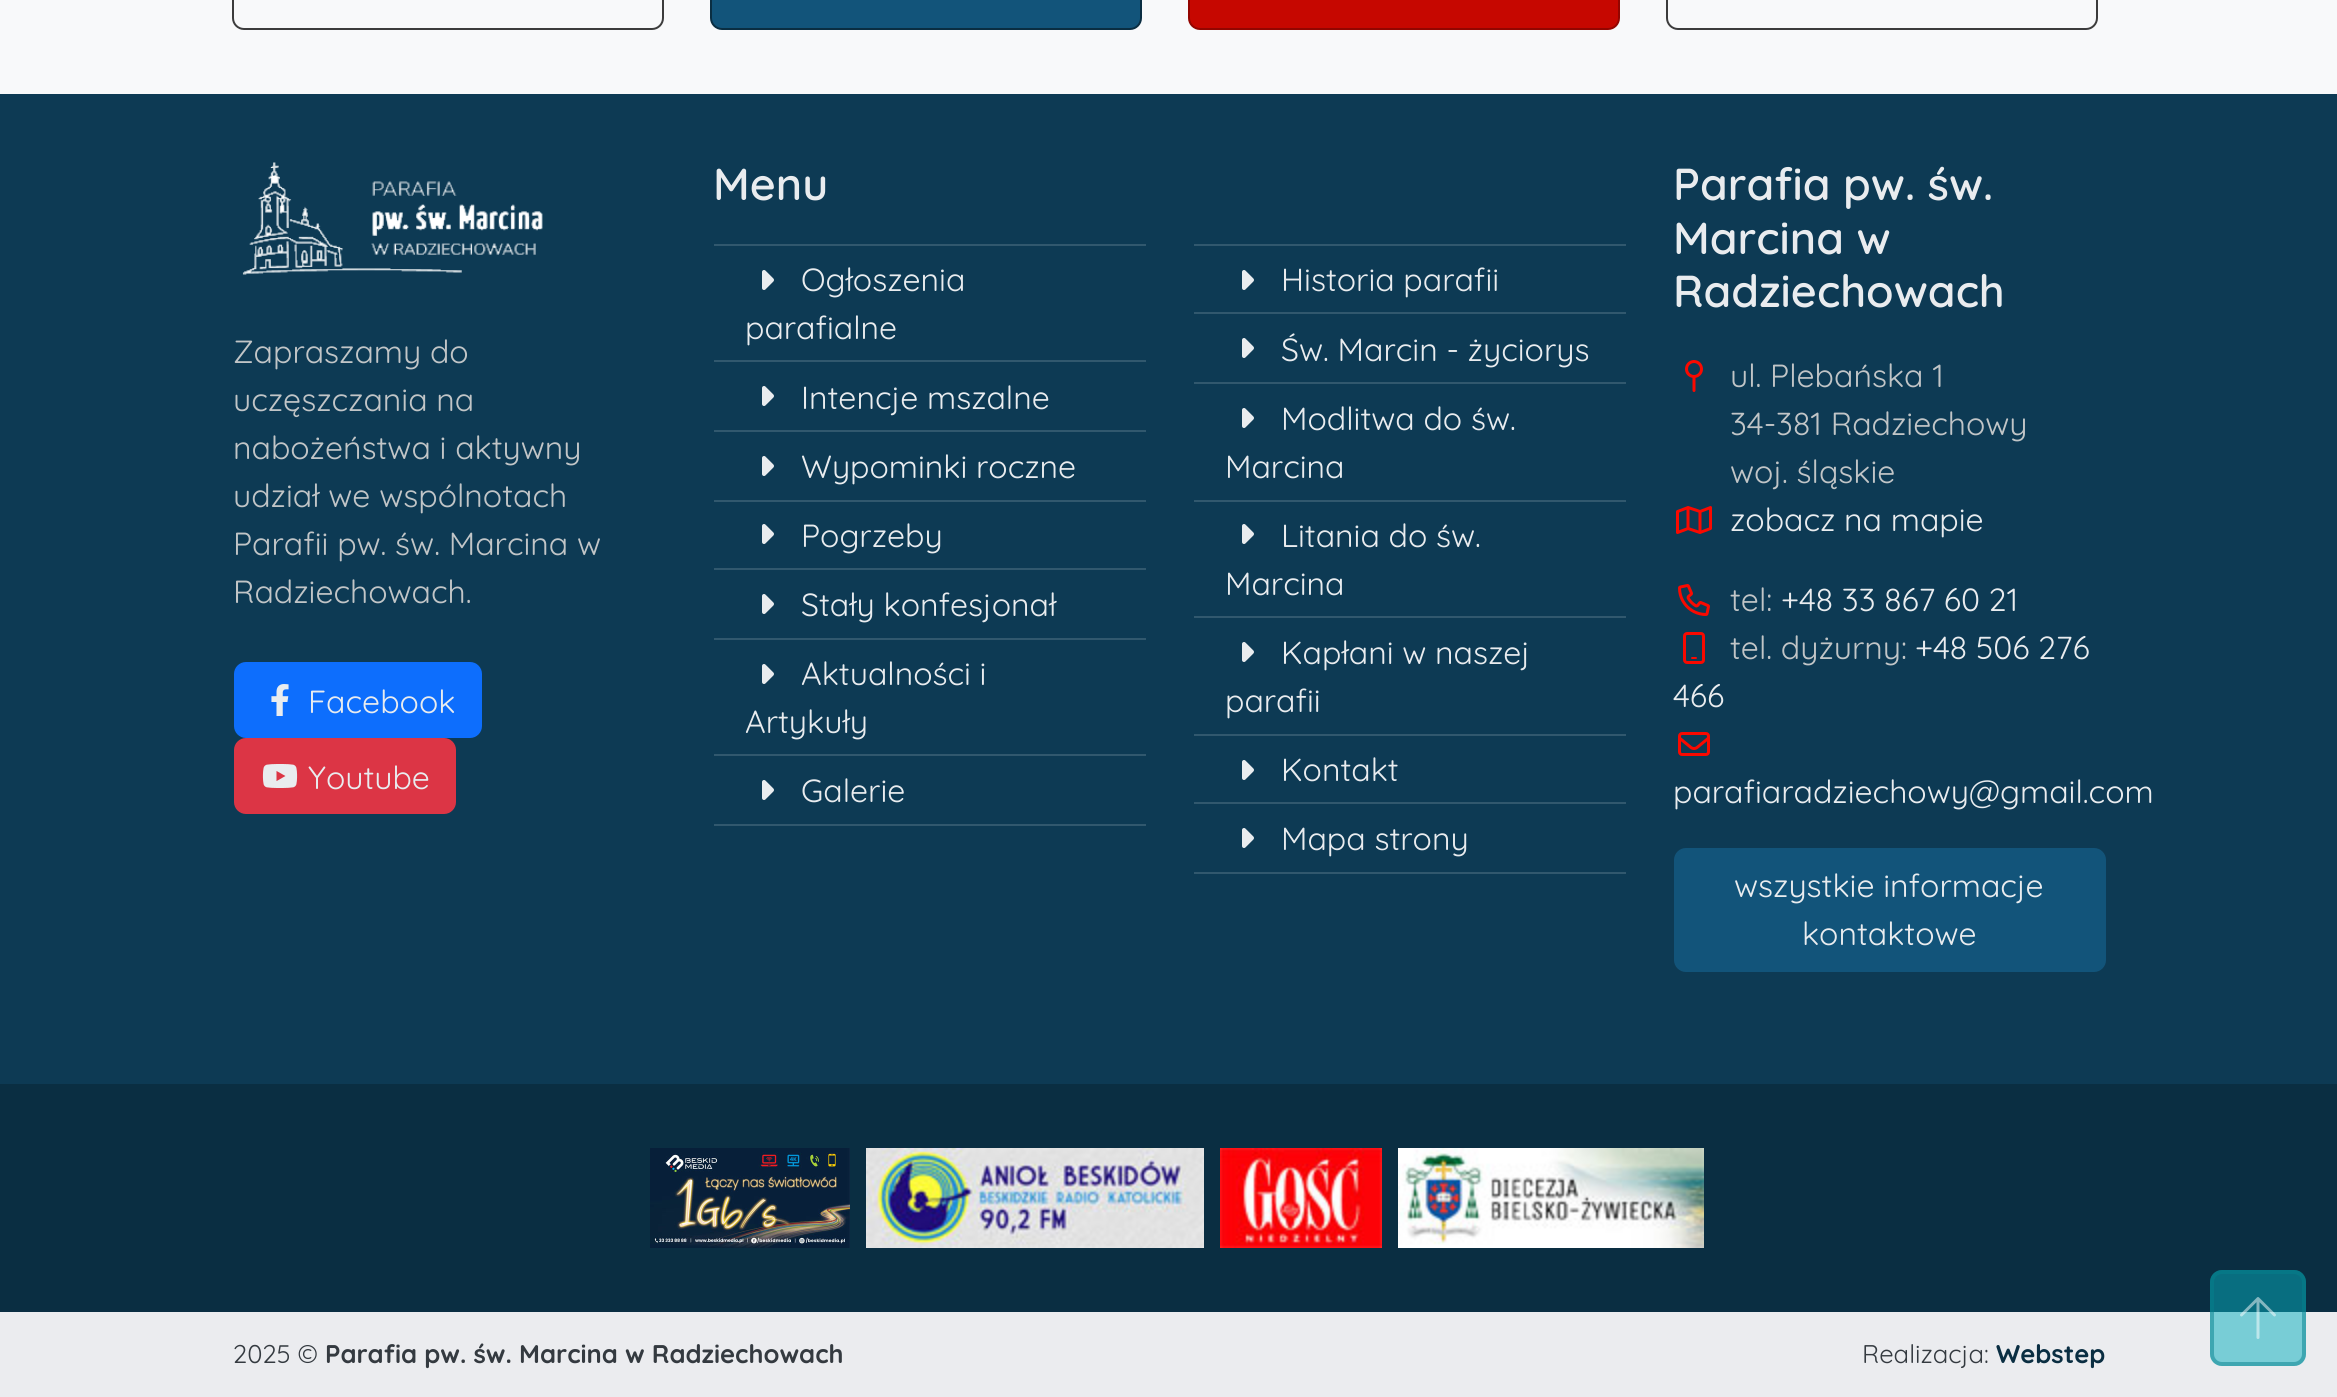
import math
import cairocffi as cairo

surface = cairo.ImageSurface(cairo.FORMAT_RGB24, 2337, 1397)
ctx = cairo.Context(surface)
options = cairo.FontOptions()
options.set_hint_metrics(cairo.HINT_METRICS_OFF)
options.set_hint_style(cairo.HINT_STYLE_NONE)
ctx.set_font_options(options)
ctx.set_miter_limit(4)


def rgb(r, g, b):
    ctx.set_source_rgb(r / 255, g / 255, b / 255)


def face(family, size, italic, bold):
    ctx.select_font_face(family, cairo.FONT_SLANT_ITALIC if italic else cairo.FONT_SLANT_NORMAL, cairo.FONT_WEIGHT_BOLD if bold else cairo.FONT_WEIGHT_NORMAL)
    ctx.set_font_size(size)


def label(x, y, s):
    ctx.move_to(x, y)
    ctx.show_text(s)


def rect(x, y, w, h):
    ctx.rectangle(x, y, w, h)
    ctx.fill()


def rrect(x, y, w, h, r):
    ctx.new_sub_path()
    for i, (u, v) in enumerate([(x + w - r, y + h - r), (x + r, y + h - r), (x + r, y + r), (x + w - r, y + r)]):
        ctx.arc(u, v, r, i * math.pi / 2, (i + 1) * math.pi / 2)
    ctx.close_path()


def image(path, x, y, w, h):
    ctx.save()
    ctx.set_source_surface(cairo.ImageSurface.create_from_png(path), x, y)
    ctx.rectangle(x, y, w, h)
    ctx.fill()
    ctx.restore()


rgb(248, 249, 250)
ctx.paint()
rrect(233, -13, 430, 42, 11)
rgb(60, 60, 60)
ctx.stroke()
rgb(18, 84, 122)
rrect(711, -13, 430, 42, 11)
ctx.fill_preserve()
rgb(10, 46, 66)
ctx.stroke()
rgb(198, 7, 0)
rrect(1189, -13, 430, 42, 11)
ctx.fill_preserve()
rgb(147, 5, 0)
ctx.stroke()
rrect(1667, -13, 430, 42, 11)
rgb(60, 60, 60)
ctx.stroke()
rgb(13, 58, 84)
rect(0, 94, 2337, 990)
image('image0.png', 242, 162, 301, 113)
face('Quicksand', 32, 0, 0)
rgb(193, 197, 199)
label(233, 363, 'Zapraszamy do')
label(233, 411, 'uczęszczania na')
label(233, 459, 'nabożeństwa i aktywny')
label(233, 507, 'udział we wspólnotach')
label(233, 555, 'Parafii pw. św. Marcina w')
label(233, 603, 'Radziechowach.')
rgb(13, 110, 253)
rrect(235, 663, 246, 74, 11)
ctx.fill_preserve()
ctx.stroke()
image('image1.png', 271, 684, 18, 32)
rgb(233, 236, 239)
label(308, 713, 'Facebook')
rgb(220, 53, 69)
rrect(235, 739, 220, 74, 11)
ctx.fill_preserve()
ctx.stroke()
image('image2.png', 262, 764, 36, 24)
rgb(233, 236, 239)
label(308, 789, 'Youtube')
face('Quicksand SemiBold', 44.75, 0, 0)
label(713, 200, 'Menu')
rgb(49, 88, 110)
rect(714, 244, 432, 2)
image('image3.png', 762, 270, 12, 20)
face('Quicksand', 32, 0, 0)
rgb(233, 236, 239)
label(801, 291, 'Ogłoszenia')
label(745, 339, 'parafialne')
rgb(49, 88, 110)
rect(714, 360, 432, 2)
image('image3.png', 762, 386, 12, 20)
rgb(233, 236, 239)
label(801, 409, 'Intencje mszalne')
rgb(49, 88, 110)
rect(714, 430, 432, 2)
image('image3.png', 762, 456, 12, 20)
rgb(233, 236, 239)
label(801, 478, 'Wypominki roczne')
rgb(49, 88, 110)
rect(714, 500, 432, 2)
image('image3.png', 762, 524, 12, 20)
rgb(233, 236, 239)
label(801, 547, 'Pogrzeby')
rgb(49, 88, 110)
rect(714, 568, 432, 2)
image('image3.png', 762, 594, 12, 20)
rgb(233, 236, 239)
label(801, 616, 'Stały konfesjonał')
rgb(49, 88, 110)
rect(714, 638, 432, 2)
image('image3.png', 762, 664, 12, 20)
rgb(233, 236, 239)
label(801, 685, 'Aktualności i')
label(745, 733, 'Artykuły')
rgb(49, 88, 110)
rect(714, 754, 432, 2)
rect(714, 824, 432, 2)
image('image3.png', 762, 780, 12, 20)
rgb(233, 236, 239)
label(801, 802, 'Galerie')
rgb(49, 88, 110)
rect(1194, 244, 432, 2)
image('image3.png', 1242, 270, 12, 20)
rgb(233, 236, 239)
label(1281, 291, 'Historia parafii')
rgb(49, 88, 110)
rect(1194, 312, 432, 2)
image('image3.png', 1242, 338, 12, 20)
rgb(233, 236, 239)
label(1281, 361, 'Św. Marcin - życiorys')
rgb(49, 88, 110)
rect(1194, 382, 432, 2)
image('image3.png', 1242, 408, 12, 20)
rgb(233, 236, 239)
label(1281, 430, 'Modlitwa do św.')
label(1225, 478, 'Marcina')
rgb(49, 88, 110)
rect(1194, 500, 432, 2)
image('image3.png', 1242, 524, 12, 20)
rgb(233, 236, 239)
label(1281, 547, 'Litania do św.')
label(1225, 595, 'Marcina')
rgb(49, 88, 110)
rect(1194, 616, 432, 2)
image('image3.png', 1242, 642, 12, 20)
rgb(233, 236, 239)
label(1281, 664, 'Kapłani w naszej')
label(1225, 712, 'parafii')
rgb(49, 88, 110)
rect(1194, 734, 432, 2)
image('image3.png', 1242, 760, 12, 20)
rgb(233, 236, 239)
label(1281, 781, 'Kontakt')
rgb(49, 88, 110)
rect(1194, 802, 432, 2)
rect(1194, 872, 432, 2)
image('image3.png', 1242, 828, 12, 20)
rgb(233, 236, 239)
label(1281, 850, 'Mapa strony')
face('Quicksand SemiBold', 44.75, 0, 0)
label(1673, 200, 'Parafia pw. św.')
label(1673, 254, 'Marcina w')
label(1673, 307, 'Radziechowach')
image('image4.png', 1685, 360, 18, 32)
face('Quicksand', 32, 0, 0)
rgb(193, 197, 199)
label(1730, 387, 'ul. Plebańska 1')
label(1730, 435, '34-381 Radziechowy')
label(1730, 483, 'woj. śląskie')
image('image5.png', 1676, 506, 36, 28)
rgb(233, 236, 239)
label(1730, 531, 'zobacz na mapie')
image('image6.png', 1678, 584, 32, 32)
rgb(193, 197, 199)
label(1730, 611, 'tel:')
rgb(233, 236, 239)
label(1781, 611, '+48 33 867 60 21')
image('image7.png', 1683, 632, 22, 32)
rgb(193, 197, 199)
label(1730, 659, 'tel. dyżurny:')
rgb(233, 236, 239)
label(1915, 659, '+48 506 276')
label(1673, 707, '466')
image('image8.png', 1678, 732, 32, 24)
label(1673, 803, 'parafiaradziechowy@gmail.com')
rgb(18, 84, 122)
rrect(1675, 849, 430, 122, 11)
ctx.fill_preserve()
ctx.stroke()
rgb(233, 236, 239)
label(1734, 897, 'wszystkie informacje')
label(1802, 945, 'kontaktowe')
rgb(10, 46, 66)
rect(0, 1084, 2337, 228)
image('image9.png', 650, 1148, 200, 100)
image('image10.png', 866, 1148, 338, 100)
image('image11.png', 1220, 1148, 162, 100)
image('image12.png', 1398, 1148, 306, 100)
rgb(235, 236, 239)
rect(0, 1312, 2337, 85)
face('Quicksand', 25.6, 0, 0)
rgb(52, 58, 64)
label(233, 1363, '2025 ©')
face('Quicksand', 25.6, 0, 1)
label(325, 1363, 'Parafia pw. św. Marcina w Radziechowach')
face('Quicksand', 25.6, 0, 0)
label(1862, 1363, 'Realizacja:')
face('Quicksand', 25.6, 0, 1)
rgb(10, 46, 66)
label(1996, 1363, 'Webstep')
ctx.set_source_rgba(0.027, 0.686, 0.749, 0.5)
rrect(2210, 1270, 96, 96, 12)
ctx.fill()
rrect(2212, 1272, 92, 92, 10)
ctx.set_source_rgba(0.02, 0.502, 0.549, 0.5)
ctx.set_line_width(4)
ctx.stroke()
image('image13.png', 2240, 1297, 36, 42)
surface.write_to_png('render.png')
